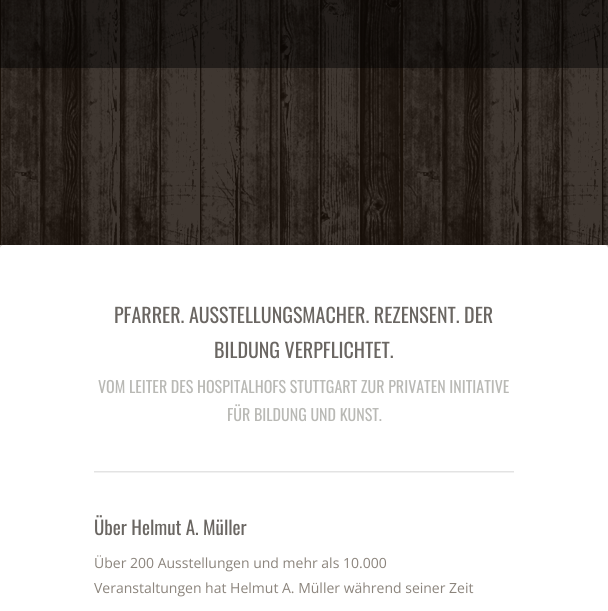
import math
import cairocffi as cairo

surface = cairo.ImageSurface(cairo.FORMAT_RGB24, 608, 611)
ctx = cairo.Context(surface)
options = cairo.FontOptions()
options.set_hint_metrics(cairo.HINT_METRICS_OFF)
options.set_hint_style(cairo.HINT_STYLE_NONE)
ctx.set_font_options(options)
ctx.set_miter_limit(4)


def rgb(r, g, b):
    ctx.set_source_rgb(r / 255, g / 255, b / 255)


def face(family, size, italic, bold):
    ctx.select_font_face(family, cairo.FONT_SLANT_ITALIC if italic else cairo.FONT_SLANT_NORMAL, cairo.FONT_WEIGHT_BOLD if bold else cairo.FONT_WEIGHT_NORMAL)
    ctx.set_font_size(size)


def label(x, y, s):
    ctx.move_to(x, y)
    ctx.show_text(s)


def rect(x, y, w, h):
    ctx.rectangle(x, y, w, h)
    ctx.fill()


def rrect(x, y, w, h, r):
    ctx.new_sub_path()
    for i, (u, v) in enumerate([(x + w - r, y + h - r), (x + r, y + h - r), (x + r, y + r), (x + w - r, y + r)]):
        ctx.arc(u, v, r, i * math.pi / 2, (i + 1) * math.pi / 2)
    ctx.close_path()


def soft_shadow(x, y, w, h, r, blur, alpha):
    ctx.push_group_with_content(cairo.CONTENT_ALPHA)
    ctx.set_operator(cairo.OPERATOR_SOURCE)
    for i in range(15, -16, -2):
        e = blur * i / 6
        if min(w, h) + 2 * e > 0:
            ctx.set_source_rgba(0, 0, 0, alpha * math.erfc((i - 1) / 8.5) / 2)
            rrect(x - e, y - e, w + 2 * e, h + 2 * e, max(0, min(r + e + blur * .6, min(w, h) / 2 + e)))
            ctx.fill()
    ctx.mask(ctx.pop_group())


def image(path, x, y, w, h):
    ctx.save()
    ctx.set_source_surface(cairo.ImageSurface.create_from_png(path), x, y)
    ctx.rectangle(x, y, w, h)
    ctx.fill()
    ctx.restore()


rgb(220, 217, 214)
ctx.paint()
image('image0.png', 0, 245, 608, 4)
rgb(26, 17, 9)
rect(0, 0, 608, 245)
image('image1.png', 1, 0, 607, 245)
ctx.set_source_rgba(0, 0, 0, 0.45)
rect(0, 0, 608, 68)
rgb(0, 0, 0)
soft_shadow(0, 246, 608, 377, 4, 2.5, 0.2)
rgb(255, 255, 255)
ctx.new_path()
ctx.move_to(4, 245)
ctx.line_to(604, 245)
ctx.curve_to(606, 245, 608, 247, 608, 249)
ctx.line_to(608, 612)
ctx.curve_to(608, 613.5, 606.5, 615, 605, 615)
ctx.line_to(3, 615)
ctx.curve_to(1.5, 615, 0, 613.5, 0, 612)
ctx.line_to(0, 249)
ctx.curve_to(0, 247, 2, 245, 4, 245)
ctx.close_path()
ctx.fill()
rrect(0, 245, 608, 18, 4)
ctx.fill()
face('Oswald', 20, 0, 0)
rgb(106, 102, 98)
label(114, 323, 'PFARRER. AUSSTELLUNGSMACHER. REZENSENT. DER')
label(214, 358, 'BILDUNG VERPFLICHTET.')
face('Oswald', 16, 0, 0)
rgb(185, 185, 181)
label(98, 393, 'VOM LEITER DES HOSPITALHOFS STUTTGART ZUR PRIVATEN INITIATIVE')
label(227, 421, 'FÜR BILDUNG UND KUNST.')
image('image2.png', 94, 471, 420, 2)
face('Oswald', 19, 0, 0)
rgb(106, 102, 98)
label(94, 535, 'Über Helmut A. Müller')
face('Open Sans', 14, 0, 0)
rgb(139, 132, 124)
label(94, 568, 'Über 200 Ausstellungen und mehr als 10.000')
label(94, 593, 'Veranstaltungen hat Helmut A. Müller während seiner Zeit')
surface.write_to_png('render.png')
